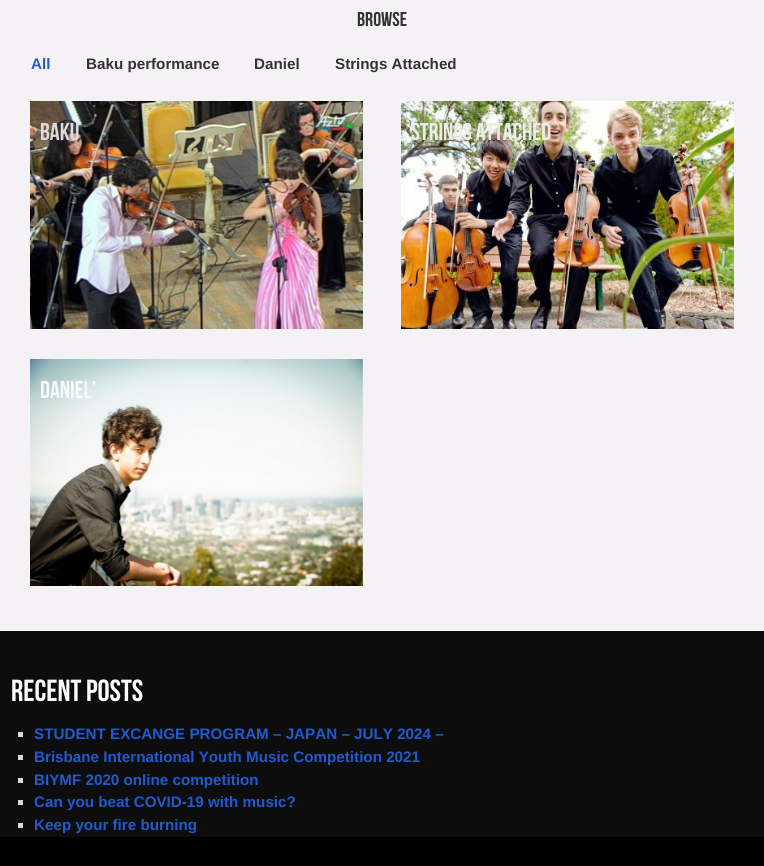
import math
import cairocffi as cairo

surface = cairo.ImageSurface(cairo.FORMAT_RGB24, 764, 866)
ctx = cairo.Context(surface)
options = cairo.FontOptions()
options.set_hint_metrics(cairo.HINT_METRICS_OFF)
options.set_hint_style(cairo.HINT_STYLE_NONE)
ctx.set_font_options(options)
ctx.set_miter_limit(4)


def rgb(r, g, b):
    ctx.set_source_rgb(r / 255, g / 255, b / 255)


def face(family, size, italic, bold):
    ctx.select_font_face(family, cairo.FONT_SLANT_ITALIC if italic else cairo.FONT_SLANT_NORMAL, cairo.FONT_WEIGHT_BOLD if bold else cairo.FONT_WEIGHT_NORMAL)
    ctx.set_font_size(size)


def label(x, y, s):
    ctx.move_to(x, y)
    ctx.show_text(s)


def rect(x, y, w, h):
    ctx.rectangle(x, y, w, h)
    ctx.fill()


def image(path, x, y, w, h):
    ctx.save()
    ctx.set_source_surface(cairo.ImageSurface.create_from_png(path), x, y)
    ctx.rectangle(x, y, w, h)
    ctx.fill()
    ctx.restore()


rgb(245, 242, 245)
ctx.paint()
face('Bebas Neue', 20, 0, 0)
rgb(51, 51, 51)
label(357, 26, 'BROWSE')
face('Liberation Sans', 15.2, 0, 1)
rgb(33, 90, 204)
label(31, 69, 'All')
rgb(51, 51, 51)
label(86, 69, 'Baku performance')
label(254, 69, 'Daniel')
label(335, 69, 'Strings Attached')
image('image0.png', 30, 101, 333, 228)
face('Bebas Neue', 24.25, 0, 0)
rgb(221, 219, 218)
label(40, 140, 'Baku')
image('image1.png', 401, 101, 333, 228)
rgb(236, 237, 230)
label(411, 140, 'Strings Attached')
image('image2.png', 30, 359, 333, 227)
rgb(247, 250, 250)
label(40, 398, 'Daniel’')
rgb(13, 13, 13)
rect(0, 631, 764, 206)
face('Bebas Neue', 30.5, 0, 0)
rgb(255, 255, 255)
label(11, 701, 'Recent Posts')
rgb(217, 217, 217)
rect(18, 732, 5, 5)
face('Liberation Sans', 15.2, 0, 1)
rgb(33, 90, 204)
label(34, 739, 'STUDENT EXCANGE PROGRAM – JAPAN – JULY 2024 –')
rgb(217, 217, 217)
rect(18, 755, 5, 5)
rgb(33, 90, 204)
label(34, 762, 'Brisbane International Youth Music Competition 2021')
rgb(217, 217, 217)
rect(18, 778, 5, 5)
rgb(33, 90, 204)
label(34, 785, 'BIYMF 2020 online competition')
rgb(217, 217, 217)
rect(18, 800, 5, 5)
rgb(33, 90, 204)
label(34, 807, 'Can you beat COVID-19 with music?')
rgb(217, 217, 217)
rect(18, 823, 5, 5)
rgb(33, 90, 204)
label(34, 830, 'Keep your fire burning')
rgb(0, 0, 0)
rect(0, 837, 764, 29)
surface.write_to_png('render.png')
